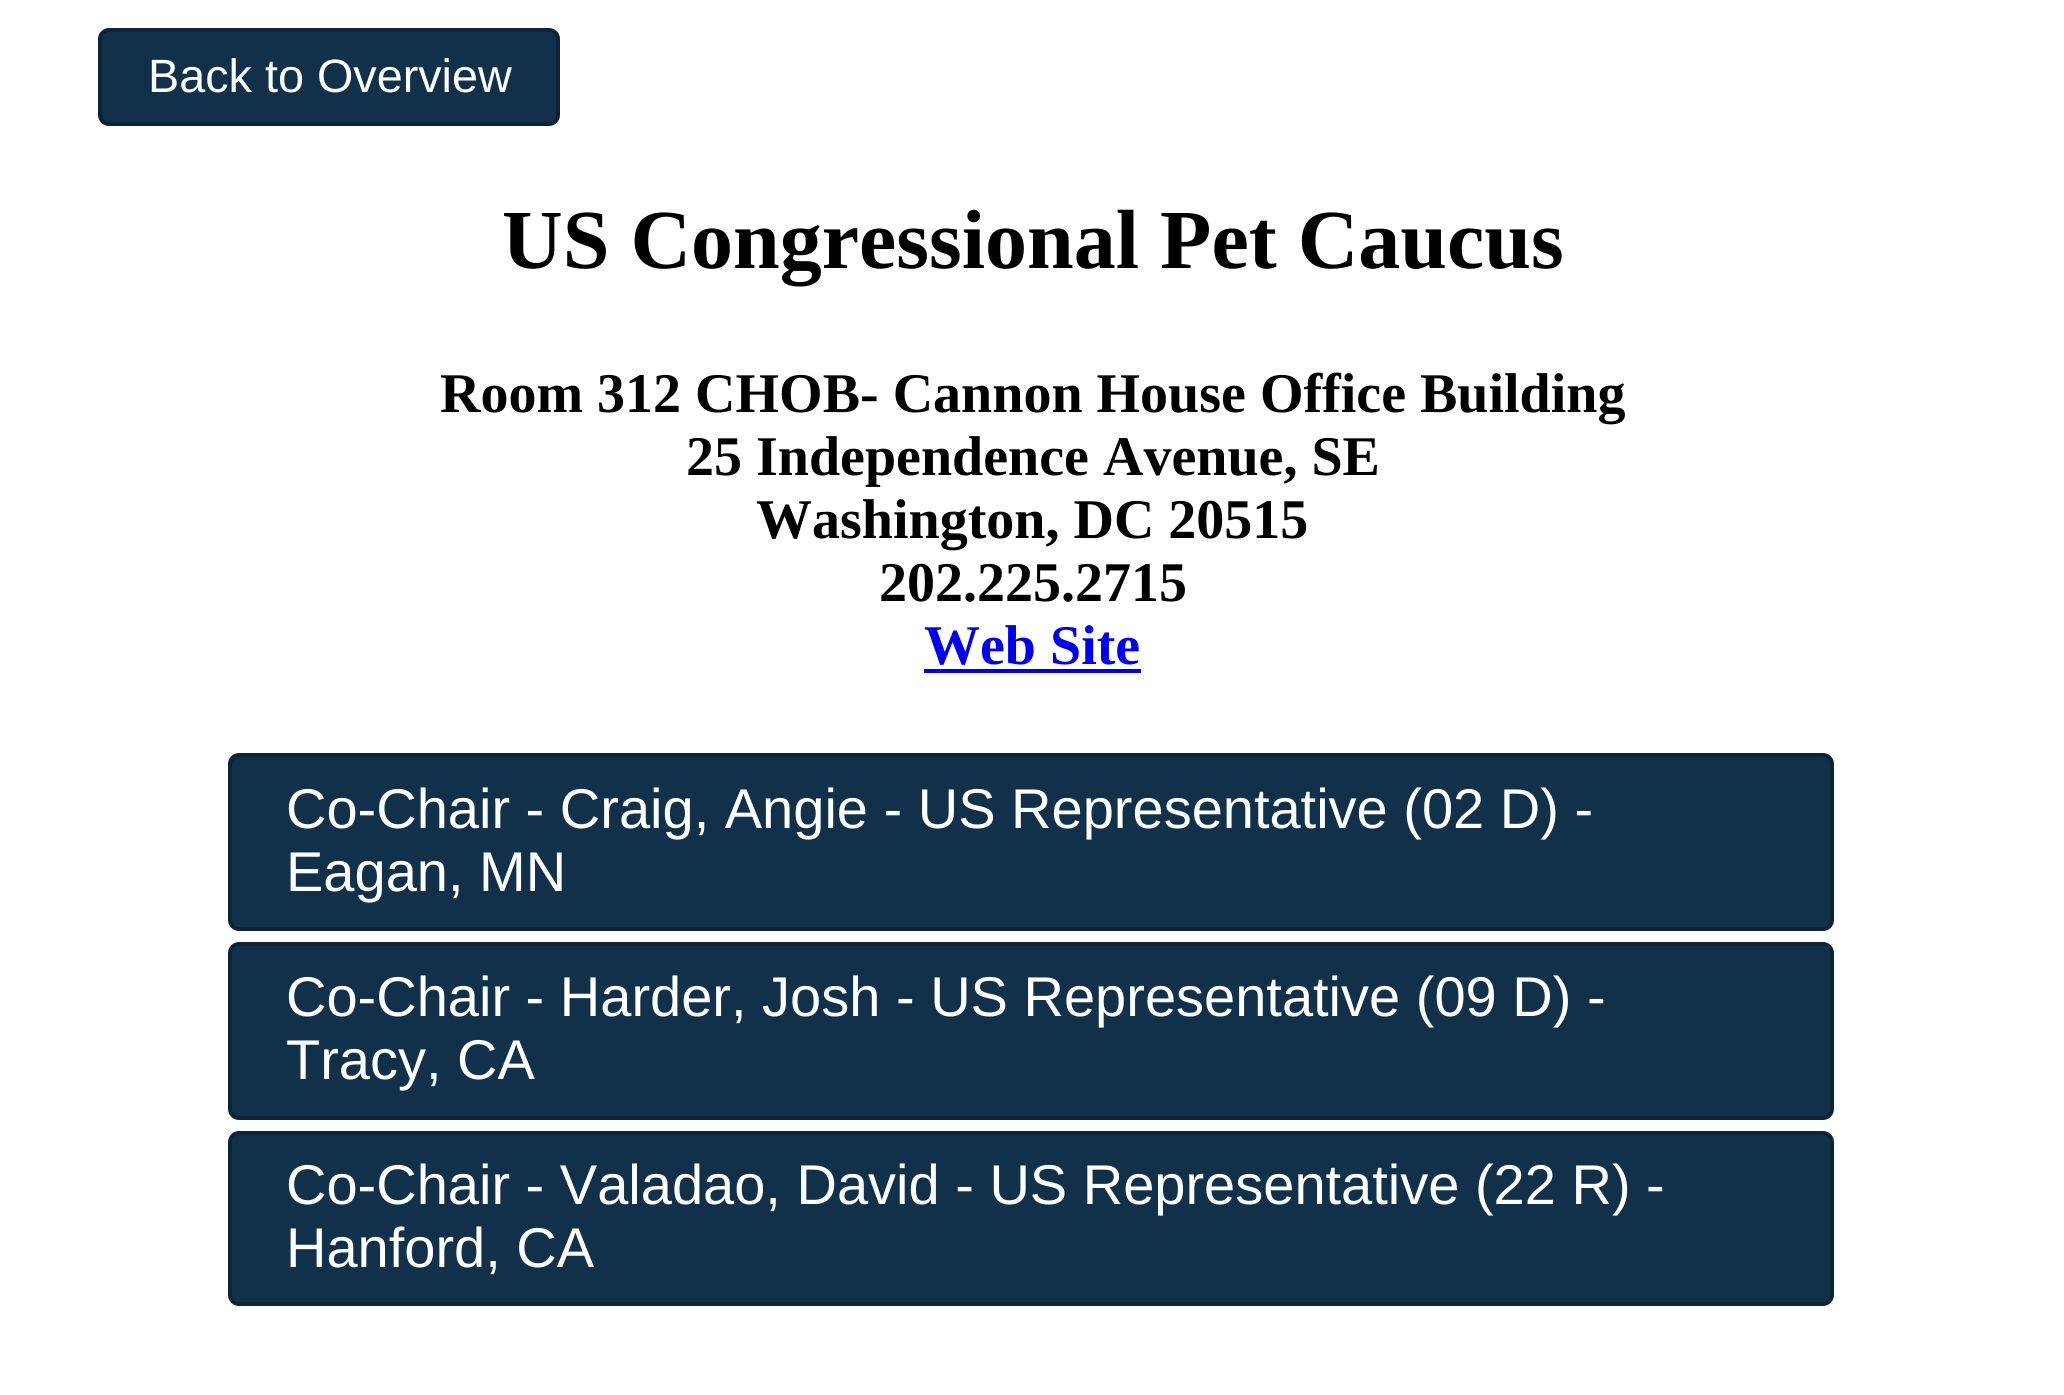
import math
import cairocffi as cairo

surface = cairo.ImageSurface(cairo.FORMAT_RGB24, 2064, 1395)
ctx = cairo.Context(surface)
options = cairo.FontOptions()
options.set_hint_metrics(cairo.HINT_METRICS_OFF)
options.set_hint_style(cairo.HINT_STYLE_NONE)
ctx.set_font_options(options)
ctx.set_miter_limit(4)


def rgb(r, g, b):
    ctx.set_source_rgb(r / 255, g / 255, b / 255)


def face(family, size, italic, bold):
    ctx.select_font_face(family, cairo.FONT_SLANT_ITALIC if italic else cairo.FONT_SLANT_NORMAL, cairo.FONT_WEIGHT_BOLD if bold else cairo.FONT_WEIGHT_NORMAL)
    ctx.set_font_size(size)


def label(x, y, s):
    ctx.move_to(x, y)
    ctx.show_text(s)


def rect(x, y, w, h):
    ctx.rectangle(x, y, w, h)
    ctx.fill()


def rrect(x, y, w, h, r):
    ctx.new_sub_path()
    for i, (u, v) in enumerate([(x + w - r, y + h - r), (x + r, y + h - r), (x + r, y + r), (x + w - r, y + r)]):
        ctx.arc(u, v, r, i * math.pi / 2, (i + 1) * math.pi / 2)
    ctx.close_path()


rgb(255, 255, 255)
ctx.paint()
rgb(17, 49, 74)
rrect(100, 30, 458, 94, 9)
ctx.fill_preserve()
rgb(12, 36, 56)
ctx.set_line_width(4)
ctx.stroke()
face('Liberation Sans', 46.75, 0, 0)
rgb(255, 255, 255)
label(148, 92, 'Back to Overview')
face('Liberation Serif', 84, 0, 1)
rgb(0, 0, 0)
label(502, 268, 'US Congressional Pet Caucus')
face('Liberation Serif', 56, 0, 1)
label(440, 412, 'Room 312 CHOB- Cannon House Office Building')
label(686, 475, '25 Independence Avenue, SE')
label(756, 538, 'Washington, DC 20515')
label(879, 601, '202.225.2715')
rgb(0, 0, 238)
label(924, 664, 'Web Site')
rect(924, 669, 217, 4)
rgb(17, 49, 74)
rrect(230, 755, 1602, 174, 9)
ctx.fill_preserve()
rgb(12, 36, 56)
ctx.stroke()
face('Liberation Sans', 56, 0, 0)
rgb(255, 255, 255)
label(286, 828, 'Co-Chair - Craig, Angie - US Representative (02 D) -')
label(286, 891, 'Eagan, MN')
rgb(17, 49, 74)
rrect(230, 944, 1602, 174, 9)
ctx.fill_preserve()
rgb(12, 36, 56)
ctx.stroke()
rgb(255, 255, 255)
label(286, 1016, 'Co-Chair - Harder, Josh - US Representative (09 D) -')
label(286, 1079, 'Tracy, CA')
rgb(17, 49, 74)
rrect(230, 1133, 1602, 171, 9)
ctx.fill_preserve()
rgb(12, 36, 56)
ctx.stroke()
rgb(255, 255, 255)
label(286, 1204, 'Co-Chair - Valadao, David - US Representative (22 R) -')
label(286, 1267, 'Hanford, CA')
surface.write_to_png('render.png')
